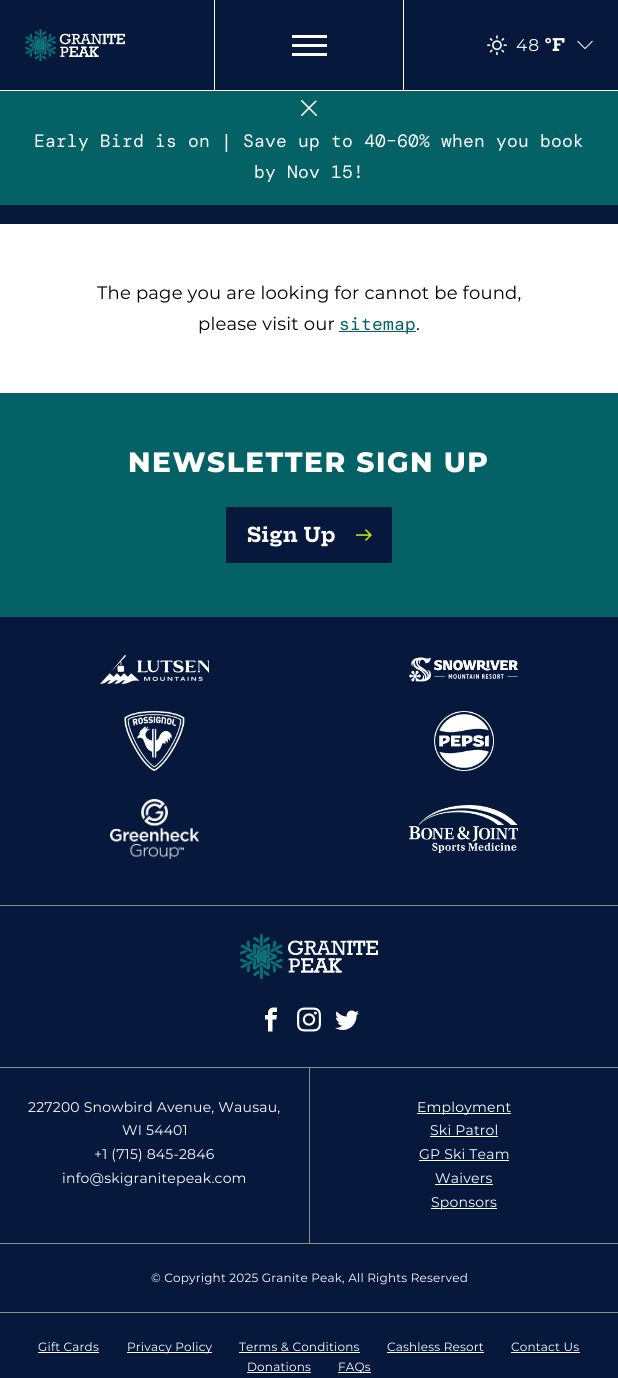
import math
import cairocffi as cairo

surface = cairo.ImageSurface(cairo.FORMAT_RGB24, 618, 1378)
ctx = cairo.Context(surface)
options = cairo.FontOptions()
options.set_hint_metrics(cairo.HINT_METRICS_OFF)
options.set_hint_style(cairo.HINT_STYLE_NONE)
ctx.set_font_options(options)
ctx.set_miter_limit(4)


def rgb(r, g, b):
    ctx.set_source_rgb(r / 255, g / 255, b / 255)


def face(family, size, italic, bold):
    ctx.select_font_face(family, cairo.FONT_SLANT_ITALIC if italic else cairo.FONT_SLANT_NORMAL, cairo.FONT_WEIGHT_BOLD if bold else cairo.FONT_WEIGHT_NORMAL)
    ctx.set_font_size(size)


def tracked(x, y, s, letter, word):
    ctx.move_to(x, y)
    for ch in s:
        ctx.show_text(ch)
        ctx.rel_move_to(letter + word * (ch == ' '), 0)


def rect(x, y, w, h):
    ctx.rectangle(x, y, w, h)
    ctx.fill()


def image(path, x, y, w, h):
    ctx.save()
    ctx.set_source_surface(cairo.ImageSurface.create_from_png(path), x, y)
    ctx.rectangle(x, y, w, h)
    ctx.fill()
    ctx.restore()


rgb(255, 255, 255)
ctx.paint()
rgb(6, 24, 60)
rect(0, 0, 618, 90)
image('image0.png', 25, 29, 100, 32)
rgb(255, 255, 255)
rect(403, 0, 1, 90)
rect(214, 0, 1, 90)
rect(292, 44, 35, 3)
rect(292, 35, 35, 3)
rect(292, 53, 35, 3)
image('image1.png', 487, 35, 20, 21)
face('Montserrat', 17, 0, 0)
tracked(516, 51, '48', 1, 0)
face('Hepta Slab ExtraLight', 17, 0, 0)
tracked(545, 51, '°F', 1, 0)
image('image2.png', 577, 40, 16, 10)
rgb(4, 98, 103)
rect(0, 91, 618, 114)
image('image3.png', 301, 100, 16, 16)
face('DM Mono', 18, 0, 0)
rgb(255, 255, 255)
tracked(34, 147, 'Early Bird is on | Save up to 40–60% when you book', 0.2, 0)
tracked(254, 178, 'by Nov 15!', 0.2, 0)
rgb(6, 24, 60)
rect(0, 205, 618, 19)
face('Montserrat', 18, 0, 0)
rgb(0, 0, 0)
tracked(97, 299, 'The page you are looking for cannot be found,', 0.2, 0)
tracked(198, 330, 'please visit our', 0.2, 0)
rgb(4, 98, 103)
rect(339, 331, 77, 1)
face('DM Mono', 18, 0, 0)
tracked(339, 330, 'sitemap', 0.2, 0)
face('Montserrat', 18, 0, 0)
rgb(0, 0, 0)
tracked(416, 330, '.', 0.2, 0)
rgb(4, 98, 103)
rect(0, 393, 618, 224)
face('Montserrat ExtraBold', 28, 0, 0)
rgb(255, 255, 255)
tracked(128, 472, 'NEWSLETTER SIGN UP', 1.5, 0)
rgb(6, 24, 60)
rect(226, 507, 166, 56)
face('Hepta Slab ExtraLight', 20, 0, 0)
rgb(255, 255, 255)
tracked(247, 542, 'Sign Up', 0.25, 0)
image('image4.png', 356, 529, 16, 12)
rgb(6, 24, 60)
rect(0, 617, 618, 761)
rgb(143, 143, 143)
rect(0, 905, 618, 1)
image('image5.png', 100, 655, 109, 29)
image('image6.png', 409, 657, 109, 25)
image('image7.png', 124, 711, 61, 60)
image('image8.png', 434, 711, 60, 60)
image('image9.png', 110, 799, 89, 60)
image('image10.png', 409, 805, 109, 48)
rect(0, 1243, 618, 1)
image('image11.png', 240, 934, 138, 45)
image('image12.png', 265, 1007, 12, 25)
image('image13.png', 297, 1007, 24, 25)
image('image14.png', 335, 1010, 24, 20)
rect(0, 1067, 618, 1)
face('Montserrat', 14, 0, 0)
rgb(255, 255, 255)
tracked(28, 1112, '227200 Snowbird Avenue, Wausau,', 0.2, 0)
tracked(122, 1135, 'WI 54401', 0.2, 0)
tracked(94, 1159, '+1 (715) 845-2846', 0.2, 0)
tracked(62, 1183, 'info@skigranitepeak.com', 0.2, 0)
rgb(143, 143, 143)
rect(309, 1068, 1, 175)
rgb(255, 255, 255)
rect(417, 1113, 94, 1)
tracked(417, 1112, 'Employment', 0.2, 0)
tracked(430, 1135, 'Ski Patrol', 0.2, 0)
rect(430, 1136, 68, 1)
tracked(419, 1159, 'GP Ski Team', 0.2, 0)
rect(419, 1160, 90, 1)
tracked(435, 1183, 'Waivers', 0.2, 0)
rect(435, 1184, 58, 1)
rect(431, 1208, 66, 1)
tracked(431, 1207, 'Sponsors', 0.2, 0)
rgb(143, 143, 143)
rect(0, 1312, 618, 1)
face('Montserrat', 12, 0, 0)
rgb(255, 255, 255)
tracked(151, 1282, '© Copyright 2025 Granite Peak, All Rights Reserved', 0.2, 0)
tracked(38, 1351, 'Gift Cards', 0.2, 0)
rect(38, 1352, 61, 1)
rect(127, 1352, 85, 1)
tracked(127, 1351, 'Privacy Policy', 0.2, 0)
tracked(239, 1351, 'Terms & Conditions', 0.2, 0)
rect(239, 1352, 121, 1)
tracked(387, 1351, 'Cashless Resort', 0.2, 0)
rect(387, 1352, 97, 1)
tracked(511, 1351, 'Contact Us', 0.2, 0)
rect(511, 1352, 69, 1)
tracked(247, 1371, 'Donations', 0.2, 0)
rect(247, 1372, 64, 1)
rect(338, 1372, 33, 1)
tracked(338, 1371, 'FAQs', 0.2, 0)
surface.write_to_png('render.png')
